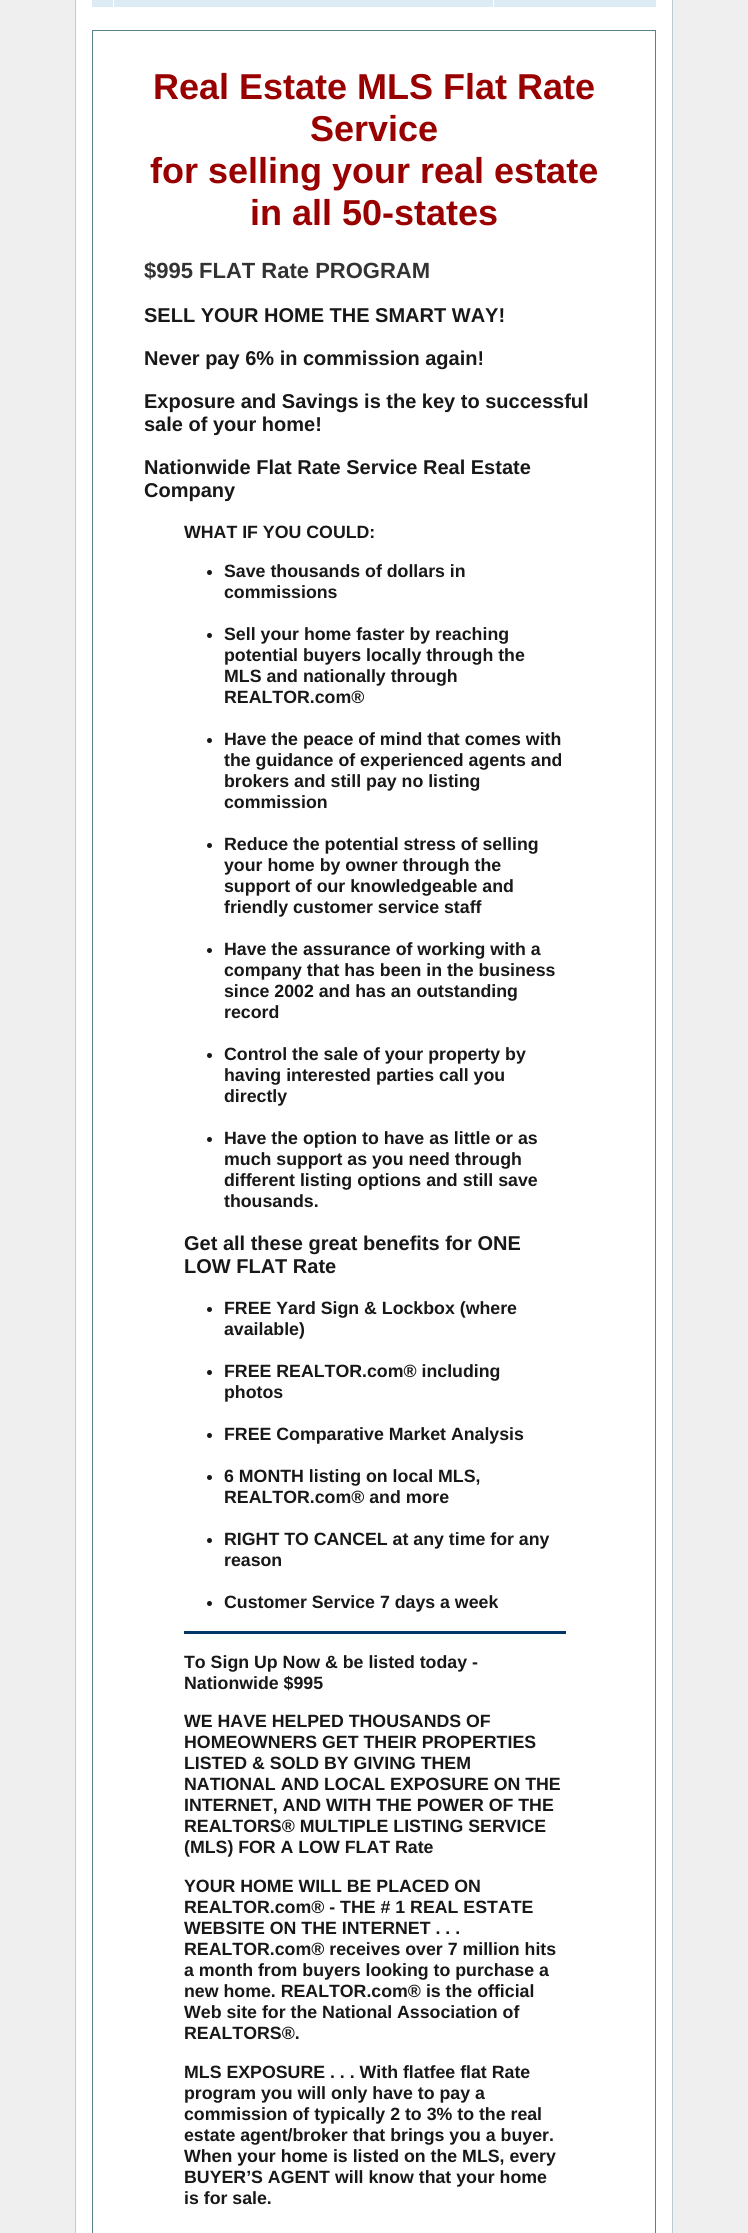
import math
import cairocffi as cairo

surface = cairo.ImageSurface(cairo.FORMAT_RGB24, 748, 2233)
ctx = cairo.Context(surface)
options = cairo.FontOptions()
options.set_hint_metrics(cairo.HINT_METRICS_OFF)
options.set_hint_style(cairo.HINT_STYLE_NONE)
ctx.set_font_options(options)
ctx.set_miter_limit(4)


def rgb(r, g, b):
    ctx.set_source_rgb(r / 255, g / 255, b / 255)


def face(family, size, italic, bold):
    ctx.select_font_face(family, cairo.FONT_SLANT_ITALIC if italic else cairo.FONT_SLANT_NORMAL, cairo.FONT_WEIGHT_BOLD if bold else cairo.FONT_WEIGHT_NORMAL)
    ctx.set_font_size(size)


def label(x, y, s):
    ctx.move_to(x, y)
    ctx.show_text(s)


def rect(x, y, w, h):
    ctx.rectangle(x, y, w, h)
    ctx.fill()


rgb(239, 239, 239)
ctx.paint()
rgb(188, 205, 209)
rect(75, 0, 598, 2233)
rgb(255, 255, 255)
rect(76, 0, 596, 2233)
rgb(221, 235, 244)
rect(92, 0, 21, 7)
rect(114, 0, 379, 7)
rect(494, 0, 162, 7)
rgb(88, 131, 139)
rect(92, 30, 564, 2203)
rgb(255, 255, 255)
rect(93, 31, 562, 2202)
face('Liberation Sans', 36, 0, 1)
rgb(153, 0, 0)
label(153, 99, 'Real Estate MLS Flat Rate')
label(310, 141, 'Service')
label(150, 183, 'for selling your real estate')
label(250, 225, 'in all 50-states')
face('Liberation Sans', 22, 0, 1)
rgb(51, 51, 51)
label(144, 278, '$995 FLAT Rate PROGRAM')
face('Liberation Sans', 20, 0, 1)
rgb(24, 24, 24)
label(144, 322, 'SELL YOUR HOME THE SMART WAY!')
label(144, 365, 'Never pay 6% in commission again!')
label(144, 408, 'Exposure and Savings is the key to successful')
label(144, 431, 'sale of your home!')
label(144, 474, 'Nationwide Flat Rate Service Real Estate')
label(144, 497, 'Company')
face('Liberation Sans', 17.75, 0, 1)
label(184, 538, 'WHAT IF YOU COULD:')
ctx.new_path()
ctx.arc(209.5, 572.5, 2.5, 0, 2 * math.pi)
ctx.fill()
label(224, 577, 'Save thousands of dollars in')
label(224, 598, 'commissions')
ctx.new_path()
ctx.arc(209.5, 635.5, 2.5, 0, 2 * math.pi)
ctx.fill()
label(224, 640, 'Sell your home faster by reaching')
label(224, 661, 'potential buyers locally through the')
label(224, 682, 'MLS and nationally through')
label(224, 703, 'REALTOR.com®')
ctx.new_path()
ctx.arc(209.5, 740.5, 2.5, 0, 2 * math.pi)
ctx.fill()
label(224, 745, 'Have the peace of mind that comes with')
label(224, 766, 'the guidance of experienced agents and')
label(224, 787, 'brokers and still pay no listing')
label(224, 808, 'commission')
ctx.new_path()
ctx.arc(209.5, 845.5, 2.5, 0, 2 * math.pi)
ctx.fill()
label(224, 850, 'Reduce the potential stress of selling')
label(224, 871, 'your home by owner through the')
label(224, 892, 'support of our knowledgeable and')
label(224, 913, 'friendly customer service staff')
ctx.new_path()
ctx.arc(209.5, 950.5, 2.5, 0, 2 * math.pi)
ctx.fill()
label(224, 955, 'Have the assurance of working with a')
label(224, 976, 'company that has been in the business')
label(224, 997, 'since 2002 and has an outstanding')
label(224, 1018, 'record')
ctx.new_path()
ctx.arc(209.5, 1055.5, 2.5, 0, 2 * math.pi)
ctx.fill()
label(224, 1060, 'Control the sale of your property by')
label(224, 1081, 'having interested parties call you')
label(224, 1102, 'directly')
ctx.new_path()
ctx.arc(209.5, 1139.5, 2.5, 0, 2 * math.pi)
ctx.fill()
label(224, 1144, 'Have the option to have as little or as')
label(224, 1165, 'much support as you need through')
label(224, 1186, 'different listing options and still save')
label(224, 1207, 'thousands.')
face('Liberation Sans', 20, 0, 1)
label(184, 1250, 'Get all these great benefits for ONE')
label(184, 1273, 'LOW FLAT Rate')
ctx.new_path()
ctx.arc(209.5, 1309.5, 2.5, 0, 2 * math.pi)
ctx.fill()
face('Liberation Sans', 17.75, 0, 1)
label(224, 1314, 'FREE Yard Sign & Lockbox (where')
label(224, 1335, 'available)')
ctx.new_path()
ctx.arc(209.5, 1372.5, 2.5, 0, 2 * math.pi)
ctx.fill()
label(224, 1377, 'FREE REALTOR.com® including')
label(224, 1398, 'photos')
ctx.new_path()
ctx.arc(209.5, 1435.5, 2.5, 0, 2 * math.pi)
ctx.fill()
label(224, 1440, 'FREE Comparative Market Analysis')
ctx.new_path()
ctx.arc(209.5, 1477.5, 2.5, 0, 2 * math.pi)
ctx.fill()
label(224, 1482, '6 MONTH listing on local MLS,')
label(224, 1503, 'REALTOR.com® and more')
ctx.new_path()
ctx.arc(209.5, 1540.5, 2.5, 0, 2 * math.pi)
ctx.fill()
label(224, 1545, 'RIGHT TO CANCEL at any time for any')
label(224, 1566, 'reason')
ctx.new_path()
ctx.arc(209.5, 1603.5, 2.5, 0, 2 * math.pi)
ctx.fill()
label(224, 1608, 'Customer Service 7 days a week')
rgb(1, 54, 102)
rect(184, 1631, 382, 3)
rgb(24, 24, 24)
label(184, 1668, 'To Sign Up Now & be listed today -')
label(184, 1689, 'Nationwide $995')
label(184, 1727, 'WE HAVE HELPED THOUSANDS OF')
label(184, 1748, 'HOMEOWNERS GET THEIR PROPERTIES')
label(184, 1769, 'LISTED & SOLD BY GIVING THEM')
label(184, 1790, 'NATIONAL AND LOCAL EXPOSURE ON THE')
label(184, 1811, 'INTERNET, AND WITH THE POWER OF THE')
label(184, 1832, 'REALTORS® MULTIPLE LISTING SERVICE')
label(184, 1853, '(MLS) FOR A LOW FLAT Rate')
label(184, 1892, 'YOUR HOME WILL BE PLACED ON')
label(184, 1913, 'REALTOR.com® - THE # 1 REAL ESTATE')
label(184, 1934, 'WEBSITE ON THE INTERNET . . .')
label(184, 1955, 'REALTOR.com® receives over 7 million hits')
label(184, 1976, 'a month from buyers looking to purchase a')
label(184, 1997, 'new home. REALTOR.com® is the official')
label(184, 2018, 'Web site for the National Association of')
label(184, 2039, 'REALTORS®.')
label(184, 2078, 'MLS EXPOSURE . . . With flatfee flat Rate')
label(184, 2099, 'program you will only have to pay a')
label(184, 2120, 'commission of typically 2 to 3% to the real')
label(184, 2141, 'estate agent/broker that brings you a buyer.')
label(184, 2162, 'When your home is listed on the MLS, every')
label(184, 2183, 'BUYER’S AGENT will know that your home')
label(184, 2204, 'is for sale.')
surface.write_to_png('render.png')
